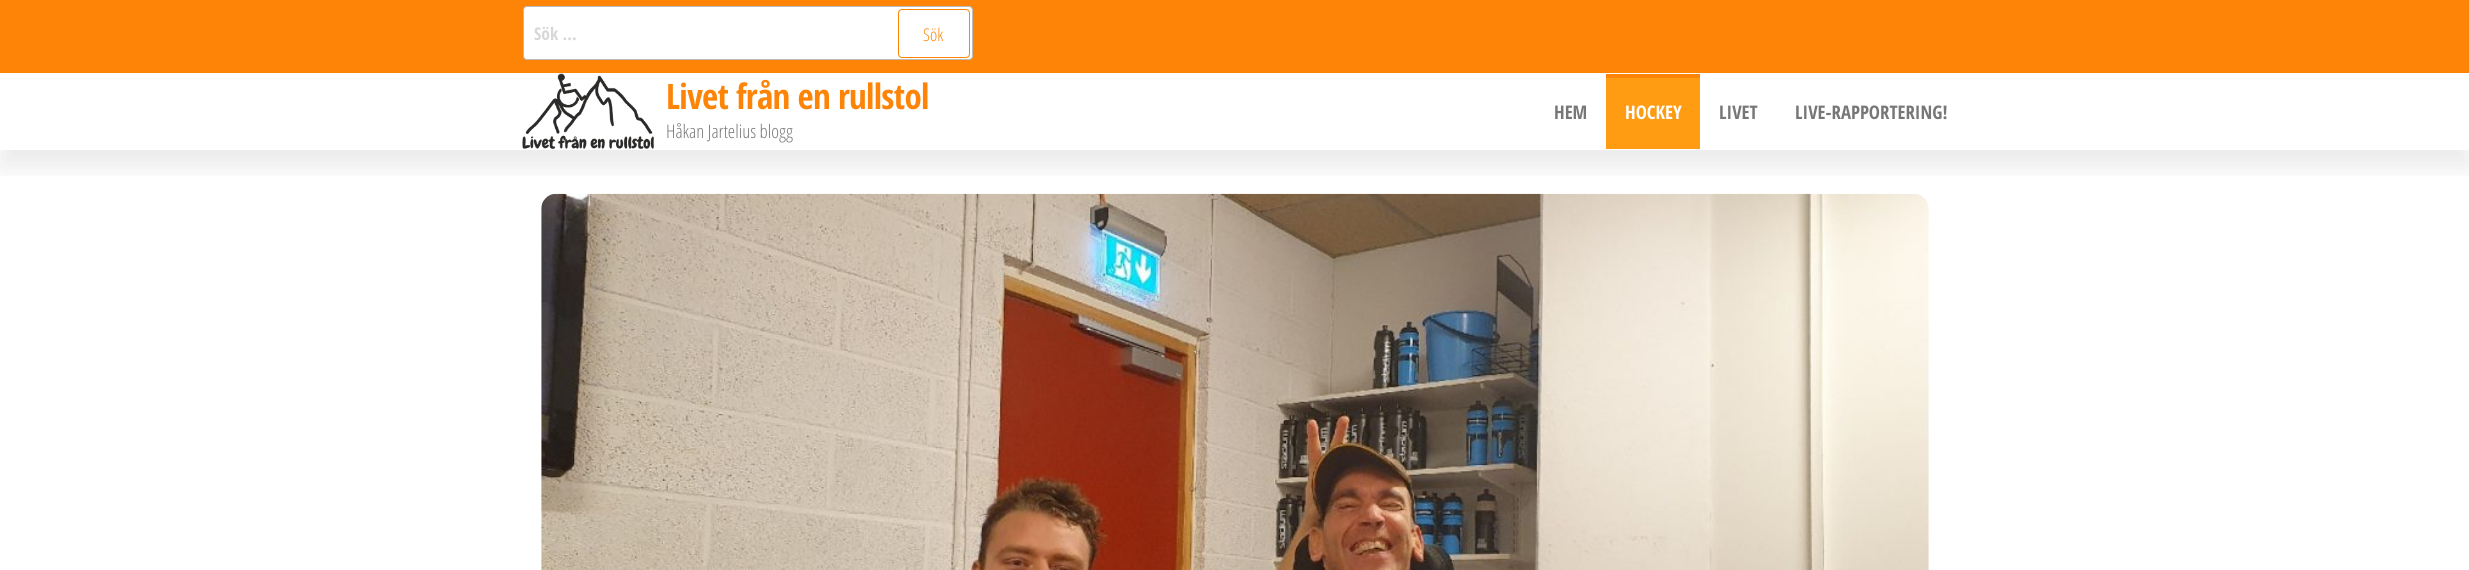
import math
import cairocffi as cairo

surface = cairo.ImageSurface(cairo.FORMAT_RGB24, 2469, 570)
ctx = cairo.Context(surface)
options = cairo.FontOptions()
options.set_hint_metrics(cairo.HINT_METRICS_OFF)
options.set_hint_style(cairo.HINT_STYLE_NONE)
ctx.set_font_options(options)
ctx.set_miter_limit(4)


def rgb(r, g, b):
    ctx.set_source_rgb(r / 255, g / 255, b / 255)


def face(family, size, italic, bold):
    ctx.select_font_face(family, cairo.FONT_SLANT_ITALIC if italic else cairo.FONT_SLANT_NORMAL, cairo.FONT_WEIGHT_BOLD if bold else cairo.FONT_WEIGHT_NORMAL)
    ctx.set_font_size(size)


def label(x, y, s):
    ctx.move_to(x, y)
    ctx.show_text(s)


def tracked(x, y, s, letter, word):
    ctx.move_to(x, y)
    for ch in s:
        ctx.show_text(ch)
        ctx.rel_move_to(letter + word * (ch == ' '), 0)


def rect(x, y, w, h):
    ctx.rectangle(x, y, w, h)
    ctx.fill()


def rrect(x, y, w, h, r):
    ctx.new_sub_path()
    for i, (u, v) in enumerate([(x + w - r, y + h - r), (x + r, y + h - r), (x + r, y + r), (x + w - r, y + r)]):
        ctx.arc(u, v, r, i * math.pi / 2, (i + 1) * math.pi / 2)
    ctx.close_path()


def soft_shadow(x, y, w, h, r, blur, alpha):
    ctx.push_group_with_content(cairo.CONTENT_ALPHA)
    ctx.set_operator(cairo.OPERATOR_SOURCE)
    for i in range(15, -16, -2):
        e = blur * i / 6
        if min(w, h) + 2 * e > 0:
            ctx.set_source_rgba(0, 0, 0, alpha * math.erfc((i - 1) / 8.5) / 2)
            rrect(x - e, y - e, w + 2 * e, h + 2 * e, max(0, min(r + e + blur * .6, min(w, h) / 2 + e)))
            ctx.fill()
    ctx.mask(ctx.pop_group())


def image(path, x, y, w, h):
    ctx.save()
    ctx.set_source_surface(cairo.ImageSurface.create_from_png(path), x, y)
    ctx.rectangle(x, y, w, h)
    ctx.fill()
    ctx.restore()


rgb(255, 255, 255)
ctx.paint()
ctx.save()
ctx.rectangle(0, 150, 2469, 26)
ctx.clip()
rgb(0, 0, 0)
soft_shadow(0, 90, 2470, 78, 0, 12.5, 0.08)
ctx.restore()
rgb(253, 132, 7)
rect(0, 0, 2469, 73)
rgb(255, 255, 255)
rrect(523.5, 6.5, 449, 53, 3.5)
ctx.fill_preserve()
rgb(187, 187, 187)
ctx.set_line_width(1)
ctx.stroke()
face('Open Sans Condensed', 17.5, 0, 1)
rgb(215, 215, 215)
label(534, 40, 'Sök …')
rrect(898.5, 9.5, 71, 48, 3.5)
rgb(253, 132, 7)
ctx.stroke()
face('Open Sans Condensed Light', 17.5, 0, 0)
label(923, 41, 'Sök')
image('image0.png', 522, 73, 132, 76)
face('Open Sans Condensed', 35, 0, 1)
tracked(666, 109, 'Livet från en rullstol', -0.7, 0)
face('Open Sans Condensed Light', 18.75, 0, 0)
rgb(119, 119, 119)
label(666, 138, 'Håkan Jartelius blogg')
face('Open Sans Condensed', 18.75, 0, 1)
label(1554, 119, 'HEM')
rgb(255, 156, 18)
rect(1606, 78, 94, 71)
rgb(253, 132, 7)
rect(1606, 74, 94, 4)
rgb(255, 255, 255)
label(1625, 119, 'HOCKEY')
rgb(119, 119, 119)
label(1719, 119, 'LIVET')
label(1795, 119, 'LIVE-RAPPORTERING!')
image('image1.png', 541, 193, 1388, 377)
surface.write_to_png('render.png')
